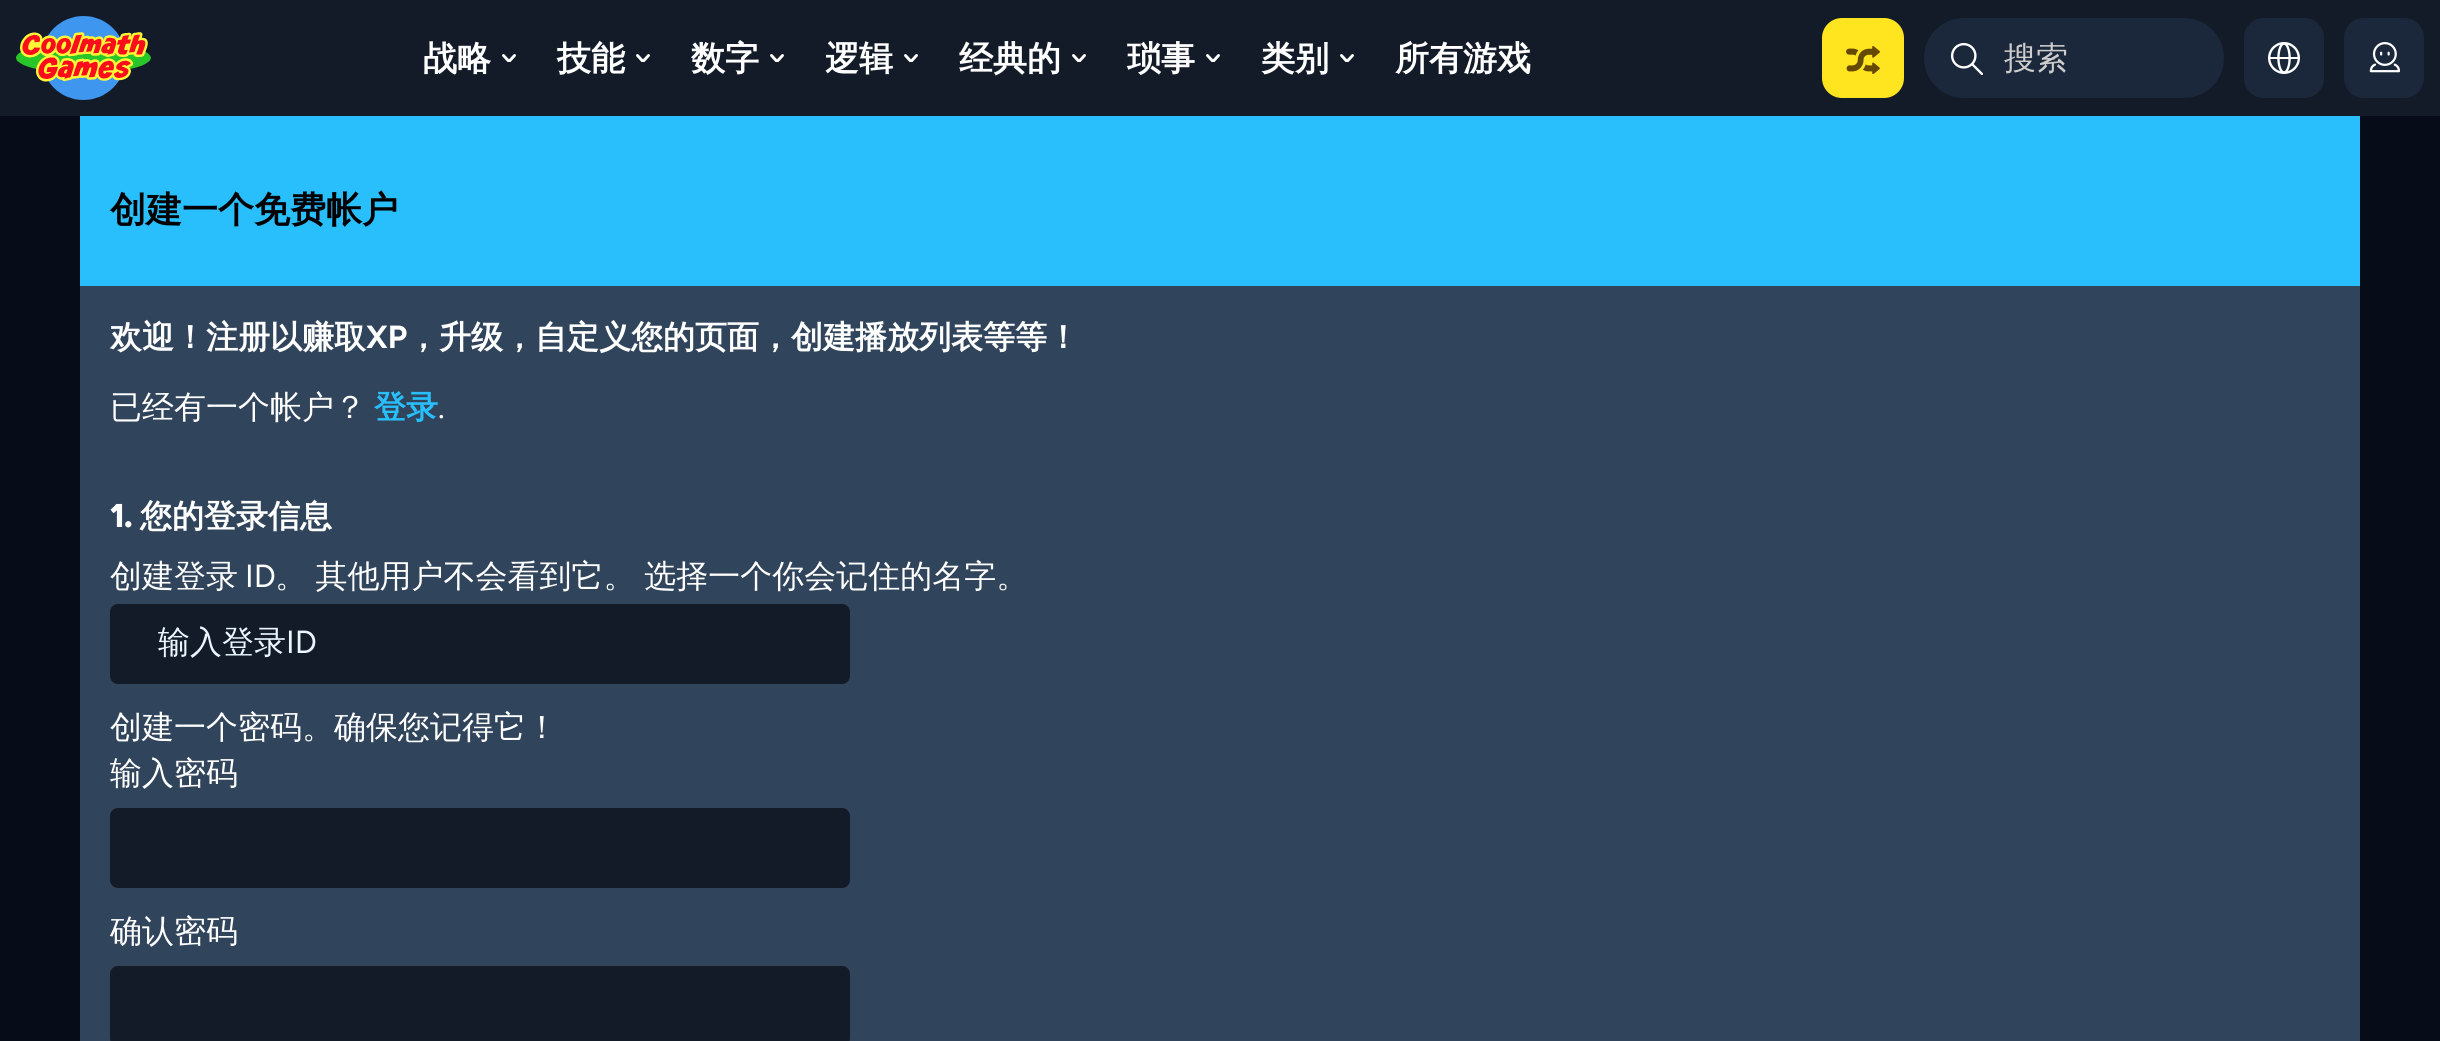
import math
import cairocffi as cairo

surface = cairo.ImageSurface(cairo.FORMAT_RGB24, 2440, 1041)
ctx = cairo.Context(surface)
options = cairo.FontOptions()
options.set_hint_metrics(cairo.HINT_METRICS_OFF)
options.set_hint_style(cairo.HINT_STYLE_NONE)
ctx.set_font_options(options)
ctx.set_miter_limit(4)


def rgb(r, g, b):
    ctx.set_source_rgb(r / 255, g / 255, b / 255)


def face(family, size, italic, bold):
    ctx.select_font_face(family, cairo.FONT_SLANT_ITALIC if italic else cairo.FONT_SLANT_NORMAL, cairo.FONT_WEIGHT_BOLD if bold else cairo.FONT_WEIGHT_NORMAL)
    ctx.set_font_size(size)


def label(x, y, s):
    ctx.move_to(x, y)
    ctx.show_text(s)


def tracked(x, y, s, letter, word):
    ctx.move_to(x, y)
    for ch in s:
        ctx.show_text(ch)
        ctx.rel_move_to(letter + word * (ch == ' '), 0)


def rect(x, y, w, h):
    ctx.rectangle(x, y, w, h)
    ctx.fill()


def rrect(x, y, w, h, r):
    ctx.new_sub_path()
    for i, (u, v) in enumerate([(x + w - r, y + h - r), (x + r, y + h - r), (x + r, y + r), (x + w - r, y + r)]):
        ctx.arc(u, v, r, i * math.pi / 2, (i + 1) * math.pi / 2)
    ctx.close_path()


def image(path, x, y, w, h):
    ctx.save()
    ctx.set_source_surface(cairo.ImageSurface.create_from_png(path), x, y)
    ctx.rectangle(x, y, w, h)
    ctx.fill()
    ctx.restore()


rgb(255, 255, 255)
ctx.paint()
gradient = cairo.LinearGradient(1220, 0, 1220, 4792)
gradient.add_color_stop_rgba(0.38, 0.024, 0.051, 0.098, 1)
gradient.add_color_stop_rgba(1, 0.075, 0.106, 0.161, 1)
ctx.set_source(gradient)
rect(0, 116, 2440, 925)
rgb(19, 27, 41)
rect(0, 0, 2440, 116)
image('image0.png', 16, 16, 135, 84)
face('WenQuanYi Zen Hei', 34, 0, 1)
rgb(255, 255, 255)
label(423, 70, '战略')
ctx.save()
ctx.rectangle(502, 54, 14, 8)
ctx.clip()
ctx.new_path()
ctx.move_to(509, 61.5)
ctx.line_to(503.5, 55.5)
ctx.move_to(509, 61.5)
ctx.line_to(514.5, 55.5)
ctx.set_line_width(2.9)
ctx.set_line_cap(cairo.LINE_CAP_ROUND)
ctx.set_line_join(cairo.LINE_JOIN_ROUND)
ctx.stroke()
ctx.restore()
label(557, 70, '技能')
ctx.save()
ctx.rectangle(636, 54, 14, 8)
ctx.clip()
ctx.new_path()
ctx.move_to(643, 61.5)
ctx.line_to(637.5, 55.5)
ctx.move_to(643, 61.5)
ctx.line_to(648.5, 55.5)
ctx.set_line_width(2.9)
ctx.set_line_cap(cairo.LINE_CAP_ROUND)
ctx.set_line_join(cairo.LINE_JOIN_ROUND)
ctx.stroke()
ctx.restore()
label(691, 70, '数字')
ctx.save()
ctx.rectangle(770, 54, 14, 8)
ctx.clip()
ctx.new_path()
ctx.move_to(777, 61.5)
ctx.line_to(771.5, 55.5)
ctx.move_to(777, 61.5)
ctx.line_to(782.5, 55.5)
ctx.set_line_width(2.9)
ctx.set_line_cap(cairo.LINE_CAP_ROUND)
ctx.set_line_join(cairo.LINE_JOIN_ROUND)
ctx.stroke()
ctx.restore()
label(825, 70, '逻辑')
ctx.save()
ctx.rectangle(904, 54, 14, 8)
ctx.clip()
ctx.new_path()
ctx.move_to(911, 61.5)
ctx.line_to(905.5, 55.5)
ctx.move_to(911, 61.5)
ctx.line_to(916.5, 55.5)
ctx.set_line_width(2.9)
ctx.set_line_cap(cairo.LINE_CAP_ROUND)
ctx.set_line_join(cairo.LINE_JOIN_ROUND)
ctx.stroke()
ctx.restore()
label(959, 70, '经典的')
ctx.save()
ctx.rectangle(1072, 54, 14, 8)
ctx.clip()
ctx.new_path()
ctx.move_to(1079, 61.5)
ctx.line_to(1073.5, 55.5)
ctx.move_to(1079, 61.5)
ctx.line_to(1084.5, 55.5)
ctx.set_line_width(2.9)
ctx.set_line_cap(cairo.LINE_CAP_ROUND)
ctx.set_line_join(cairo.LINE_JOIN_ROUND)
ctx.stroke()
ctx.restore()
label(1127, 70, '琐事')
ctx.save()
ctx.rectangle(1206, 54, 14, 8)
ctx.clip()
ctx.new_path()
ctx.move_to(1213, 61.5)
ctx.line_to(1207.5, 55.5)
ctx.move_to(1213, 61.5)
ctx.line_to(1218.5, 55.5)
ctx.set_line_width(2.9)
ctx.set_line_cap(cairo.LINE_CAP_ROUND)
ctx.set_line_join(cairo.LINE_JOIN_ROUND)
ctx.stroke()
ctx.restore()
label(1261, 70, '类别')
ctx.save()
ctx.rectangle(1340, 54, 14, 8)
ctx.clip()
ctx.new_path()
ctx.move_to(1347, 61.5)
ctx.line_to(1341.5, 55.5)
ctx.move_to(1347, 61.5)
ctx.line_to(1352.5, 55.5)
ctx.set_line_width(2.9)
ctx.set_line_cap(cairo.LINE_CAP_ROUND)
ctx.set_line_join(cairo.LINE_JOIN_ROUND)
ctx.stroke()
ctx.restore()
label(1395, 70, '所有游戏')
rgb(255, 228, 32)
rrect(1822, 18, 82, 80, 20)
ctx.fill()
image('image1.png', 1846, 46, 34, 28)
rgb(27, 40, 59)
rrect(1924, 18, 300, 80, 40)
ctx.fill()
image('image2.png', 1950, 42, 33, 33)
face('WenQuanYi Zen Hei Medium', 32, 0, 0)
rgb(205, 205, 205)
label(2004, 69, '搜索')
rgb(27, 40, 59)
rrect(2244, 18, 80, 80, 20)
ctx.fill()
image('image3.png', 2268, 42, 32, 32)
rrect(2344, 18, 80, 80, 20)
ctx.fill()
image('image4.png', 2369, 42, 31, 31)
rgb(48, 68, 91)
rect(80, 286, 2280, 755)
rgb(41, 191, 253)
rect(80, 116, 2280, 170)
face('WenQuanYi Zen Hei', 36, 0, 1)
rgb(0, 0, 0)
label(110, 222, '创建一个免费帐户')
face('WenQuanYi Zen Hei', 32, 0, 1)
rgb(255, 255, 255)
label(110, 348, '欢迎！注册以赚取')
face('Figtree', 32, 0, 1)
label(366, 348, 'XP')
face('WenQuanYi Zen Hei', 32, 0, 1)
label(407, 348, '，升级，自定义您的页面，创建播放列表等等！')
face('WenQuanYi Zen Hei Medium', 32, 0, 0)
label(110, 418, '已经有一个帐户？')
face('WenQuanYi Zen Hei', 32, 0, 1)
rgb(41, 191, 253)
label(374, 418, '登录')
face('Figtree', 32, 0, 0)
rgb(255, 255, 255)
label(438, 418, '.')
face('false', 32, 0, 1)
label(110, 527, '1.')
face('WenQuanYi Zen Hei', 32, 0, 1)
label(140, 527, '您的登录信息')
face('WenQuanYi Zen Hei Medium', 32, 0, 0)
label(110, 587, '创建登录')
face('Figtree', 32, 0, 0)
label(245, 587, 'ID')
face('WenQuanYi Zen Hei Medium', 32, 0, 0)
tracked(275, 587, '。 其他用户不会看到它。 选择一个你会记住的名字。', 0, -1)
rgb(19, 27, 41)
rrect(110, 604, 740, 80, 8)
ctx.fill()
rgb(233, 246, 254)
label(158, 653, '输入登录')
face('Figtree', 32, 0, 0)
label(286, 653, 'ID')
face('WenQuanYi Zen Hei Medium', 32, 0, 0)
rgb(255, 255, 255)
label(110, 738, '创建一个密码。确保您记得它！')
label(110, 784, '输入密码')
rgb(19, 27, 41)
rrect(110, 808, 740, 80, 8)
ctx.fill()
rgb(255, 255, 255)
label(110, 942, '确认密码')
rgb(19, 27, 41)
rrect(110, 966, 740, 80, 8)
ctx.fill()
surface.write_to_png('render.png')
